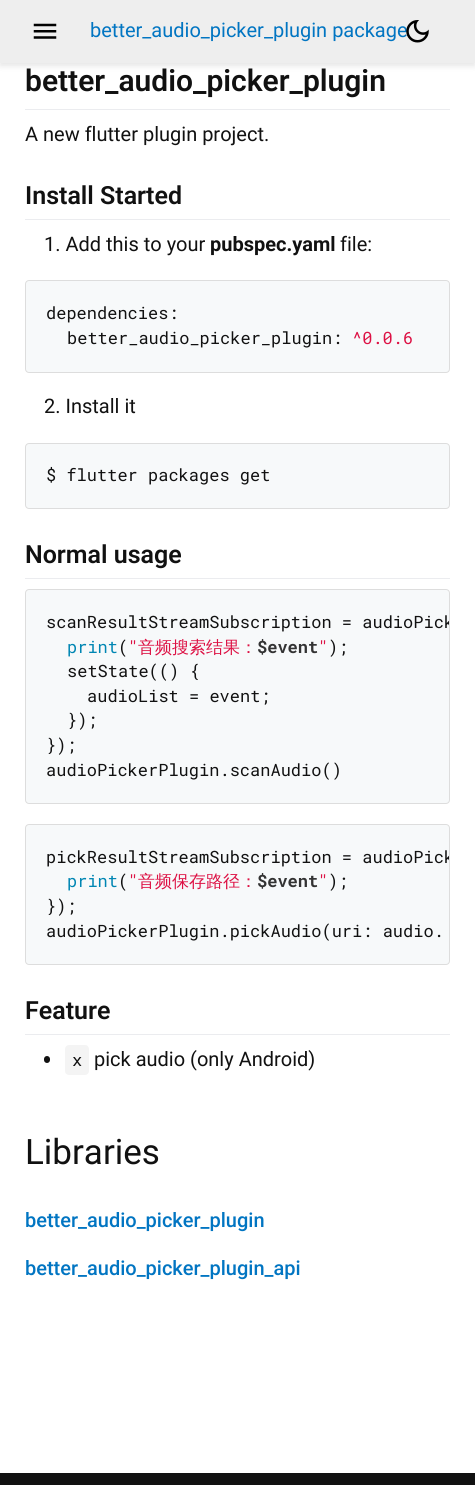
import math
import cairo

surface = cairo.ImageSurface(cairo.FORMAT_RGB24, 475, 1485)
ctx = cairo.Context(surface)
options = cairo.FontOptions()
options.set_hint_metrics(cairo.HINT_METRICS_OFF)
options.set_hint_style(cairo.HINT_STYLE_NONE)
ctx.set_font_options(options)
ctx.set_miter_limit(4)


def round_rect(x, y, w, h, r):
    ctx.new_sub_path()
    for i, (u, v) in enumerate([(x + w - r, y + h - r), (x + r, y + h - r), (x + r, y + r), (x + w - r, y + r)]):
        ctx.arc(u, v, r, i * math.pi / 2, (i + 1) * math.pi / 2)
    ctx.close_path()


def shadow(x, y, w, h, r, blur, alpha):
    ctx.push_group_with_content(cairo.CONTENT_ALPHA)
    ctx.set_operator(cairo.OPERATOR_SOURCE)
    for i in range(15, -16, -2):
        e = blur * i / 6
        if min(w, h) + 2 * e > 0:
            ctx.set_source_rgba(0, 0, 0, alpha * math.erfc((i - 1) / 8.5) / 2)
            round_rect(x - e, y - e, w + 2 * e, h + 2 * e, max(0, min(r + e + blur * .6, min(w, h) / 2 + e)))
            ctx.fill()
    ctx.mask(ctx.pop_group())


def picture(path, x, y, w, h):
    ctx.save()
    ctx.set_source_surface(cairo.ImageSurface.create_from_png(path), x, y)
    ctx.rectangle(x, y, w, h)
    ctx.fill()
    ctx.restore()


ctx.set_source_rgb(1, 1, 1)
ctx.paint()
ctx.set_source_rgb(0, 0, 0)
shadow(0, 4, 475, 62, 0, 3, 0.1)
ctx.set_source_rgb(0.933, 0.933, 0.933)
ctx.rectangle(0, 0, 475, 63)
ctx.fill()
picture("img1.png", 33, 23, 24, 16)
ctx.select_font_face("Roboto")
ctx.set_font_size(20)
ctx.set_source_rgb(0.004, 0.459, 0.761)
ctx.move_to(90, 37)
ctx.show_text("better_audio_picker_plugin package")
picture("img2.png", 406, 20, 23, 23)
ctx.set_source_rgb(0.918, 0.925, 0.937)
ctx.rectangle(25, 109, 425, 1)
ctx.fill()
ctx.select_font_face("Roboto SemiBold")
ctx.set_font_size(30)
ctx.set_source_rgb(0.067, 0.067, 0.067)
ctx.move_to(25, 91)
ctx.show_text("better_audio_picker_plugin")
ctx.select_font_face("Roboto")
ctx.set_font_size(20)
ctx.move_to(25, 141)
ctx.show_text("A new flutter plugin project.")
ctx.set_source_rgb(0.918, 0.925, 0.937)
ctx.rectangle(25, 219, 425, 1)
ctx.fill()
ctx.select_font_face("Roboto SemiBold")
ctx.set_font_size(25)
ctx.set_source_rgb(0.067, 0.067, 0.067)
ctx.move_to(25, 204)
ctx.show_text("Install Started")
ctx.select_font_face("Roboto")
ctx.set_font_size(20)
ctx.move_to(44, 251)
ctx.show_text("1. Add this to your")
ctx.select_font_face("Roboto", cairo.FONT_SLANT_NORMAL, cairo.FONT_WEIGHT_BOLD)
ctx.move_to(210, 251)
ctx.show_text("pubspec.yaml")
ctx.select_font_face("Roboto")
ctx.move_to(340, 251)
ctx.show_text("file:")
ctx.set_source_rgb(0.965, 0.973, 0.98)
round_rect(25.5, 280.5, 424, 92, 3.5)
ctx.fill_preserve()
ctx.set_source_rgb(0.867, 0.867, 0.867)
ctx.set_line_width(1)
ctx.stroke()
ctx.select_font_face("Roboto Mono")
ctx.set_font_size(17)
ctx.set_source_rgb(0.067, 0.067, 0.067)
ctx.move_to(46, 319)
ctx.show_text("dependencies:")
ctx.move_to(67, 344)
ctx.show_text("better_audio_picker_plugin:")
ctx.set_source_rgb(0.867, 0.067, 0.267)
ctx.move_to(352, 344)
ctx.show_text("^0.0.6")
ctx.select_font_face("Roboto")
ctx.set_font_size(20)
ctx.set_source_rgb(0.067, 0.067, 0.067)
ctx.move_to(44, 413)
ctx.show_text("2. Install it")
ctx.set_source_rgb(0.965, 0.973, 0.98)
round_rect(25.5, 443.5, 424, 65, 3.5)
ctx.fill_preserve()
ctx.set_source_rgb(0.867, 0.867, 0.867)
ctx.stroke()
ctx.select_font_face("Roboto Mono")
ctx.set_font_size(17)
ctx.set_source_rgb(0.067, 0.067, 0.067)
ctx.move_to(46, 481)
ctx.show_text("$ flutter packages get")
ctx.set_source_rgb(0.918, 0.925, 0.937)
ctx.rectangle(25, 578, 425, 1)
ctx.fill()
ctx.select_font_face("Roboto SemiBold")
ctx.set_font_size(25)
ctx.set_source_rgb(0.067, 0.067, 0.067)
ctx.move_to(25, 563)
ctx.show_text("Normal usage")
ctx.set_source_rgb(0.965, 0.973, 0.98)
round_rect(25.5, 589.5, 424, 214, 3.5)
ctx.fill_preserve()
ctx.set_source_rgb(0.867, 0.867, 0.867)
ctx.stroke()
ctx.save()
round_rect(26, 590, 423, 213, 2.5)
ctx.clip()
ctx.select_font_face("Roboto Mono")
ctx.set_font_size(17)
ctx.set_source_rgb(0.067, 0.067, 0.067)
ctx.move_to(46, 628)
ctx.show_text("scanResultStreamSubscription = audioPick")
ctx.restore()
ctx.select_font_face("Roboto Mono")
ctx.set_font_size(17)
ctx.set_source_rgb(0, 0.525, 0.702)
ctx.move_to(67, 653)
ctx.show_text("print")
ctx.set_source_rgb(0.067, 0.067, 0.067)
ctx.move_to(118, 653)
ctx.show_text("(")
ctx.set_source_rgb(0.867, 0.067, 0.267)
ctx.move_to(128, 653)
ctx.show_text("\"")
ctx.select_font_face("WenQuanYi Zen Hei Medium")
ctx.move_to(138, 653)
ctx.show_text("音频搜索结果：")
ctx.select_font_face("Roboto Mono", cairo.FONT_SLANT_NORMAL, cairo.FONT_WEIGHT_BOLD)
ctx.set_source_rgb(0.2, 0.2, 0.2)
ctx.move_to(257, 653)
ctx.show_text("$event")
ctx.select_font_face("Roboto Mono")
ctx.set_source_rgb(0.867, 0.067, 0.267)
ctx.move_to(318, 653)
ctx.show_text("\"")
ctx.set_source_rgb(0.067, 0.067, 0.067)
ctx.move_to(328, 653)
ctx.show_text(");")
ctx.move_to(67, 677)
ctx.show_text("setState(() {")
ctx.move_to(87, 702)
ctx.show_text("audioList = event;")
ctx.move_to(67, 726)
ctx.show_text("});")
ctx.move_to(46, 751)
ctx.show_text("});")
ctx.move_to(46, 776)
ctx.show_text("audioPickerPlugin.scanAudio()")
ctx.set_source_rgb(0.965, 0.973, 0.98)
round_rect(25.5, 824.5, 424, 140, 3.5)
ctx.fill_preserve()
ctx.set_source_rgb(0.867, 0.867, 0.867)
ctx.stroke()
ctx.save()
round_rect(26, 825, 423, 139, 2.5)
ctx.clip()
ctx.set_source_rgb(0.067, 0.067, 0.067)
ctx.move_to(46, 863)
ctx.show_text("pickResultStreamSubscription = audioPick")
ctx.restore()
ctx.set_source_rgb(0, 0.525, 0.702)
ctx.move_to(67, 887)
ctx.show_text("print")
ctx.set_source_rgb(0.067, 0.067, 0.067)
ctx.move_to(118, 887)
ctx.show_text("(")
ctx.set_source_rgb(0.867, 0.067, 0.267)
ctx.move_to(128, 887)
ctx.show_text("\"")
ctx.select_font_face("WenQuanYi Zen Hei Medium")
ctx.move_to(138, 887)
ctx.show_text("音频保存路径：")
ctx.select_font_face("Roboto Mono", cairo.FONT_SLANT_NORMAL, cairo.FONT_WEIGHT_BOLD)
ctx.set_source_rgb(0.2, 0.2, 0.2)
ctx.move_to(257, 887)
ctx.show_text("$event")
ctx.select_font_face("Roboto Mono")
ctx.set_source_rgb(0.867, 0.067, 0.267)
ctx.move_to(318, 887)
ctx.show_text("\"")
ctx.set_source_rgb(0.067, 0.067, 0.067)
ctx.move_to(328, 887)
ctx.show_text(");")
ctx.move_to(46, 912)
ctx.show_text("});")
ctx.move_to(46, 937)
ctx.show_text("audioPickerPlugin.pickAudio(uri: audio.")
ctx.set_source_rgb(0.918, 0.925, 0.937)
ctx.rectangle(25, 1034, 425, 1)
ctx.fill()
ctx.select_font_face("Roboto SemiBold")
ctx.set_font_size(25)
ctx.set_source_rgb(0.067, 0.067, 0.067)
ctx.move_to(25, 1019)
ctx.show_text("Feature")
round_rect(44, 1056, 6, 7, 3)
ctx.fill()
ctx.set_source_rgb(0.957, 0.957, 0.957)
round_rect(65, 1045, 24, 30, 4)
ctx.fill()
ctx.select_font_face("Roboto Mono")
ctx.set_font_size(17)
ctx.set_source_rgb(0.067, 0.067, 0.067)
ctx.move_to(72, 1066)
ctx.show_text("x")
ctx.select_font_face("Roboto")
ctx.set_font_size(20)
ctx.move_to(94, 1066)
ctx.show_text("pick audio (only Android)")
ctx.set_font_size(35)
ctx.move_to(25, 1164)
ctx.show_text("Libraries")
ctx.select_font_face("Roboto Medium")
ctx.set_font_size(20)
ctx.set_source_rgb(0.004, 0.459, 0.761)
ctx.move_to(25, 1227)
ctx.show_text("better_audio_picker_plugin")
ctx.move_to(25, 1275)
ctx.show_text("better_audio_picker_plugin_api")
ctx.set_source_rgb(0.067, 0.067, 0.067)
ctx.rectangle(0, 1473, 475, 12)
ctx.fill()
surface.write_to_png("page.png")
